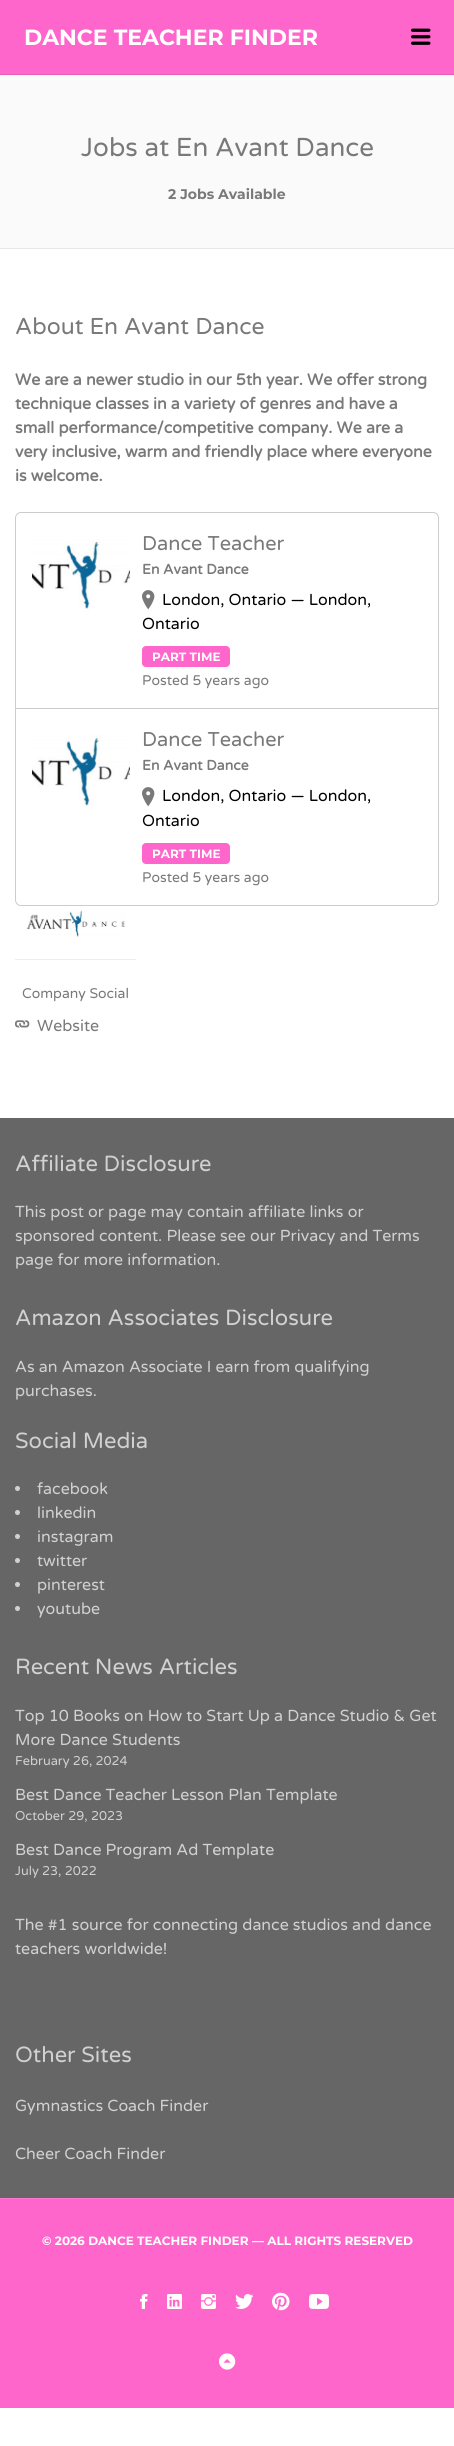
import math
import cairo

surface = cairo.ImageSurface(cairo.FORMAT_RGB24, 454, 2446)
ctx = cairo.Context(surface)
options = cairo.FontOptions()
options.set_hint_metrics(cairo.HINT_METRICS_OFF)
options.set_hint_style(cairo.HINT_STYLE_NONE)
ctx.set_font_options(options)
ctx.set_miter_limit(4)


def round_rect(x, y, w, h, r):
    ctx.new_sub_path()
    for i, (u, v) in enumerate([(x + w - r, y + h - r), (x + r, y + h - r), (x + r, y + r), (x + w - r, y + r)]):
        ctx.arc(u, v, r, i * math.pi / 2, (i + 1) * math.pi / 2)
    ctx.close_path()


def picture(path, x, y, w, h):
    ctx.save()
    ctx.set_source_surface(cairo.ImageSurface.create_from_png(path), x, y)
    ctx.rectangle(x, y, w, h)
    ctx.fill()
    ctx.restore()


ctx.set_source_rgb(1, 1, 1)
ctx.paint()
ctx.set_source_rgb(1, 0.4, 0.8)
ctx.rectangle(0, 0, 454, 74)
ctx.fill()
ctx.set_source_rgb(0.902, 0.361, 0.722)
ctx.rectangle(0, 74, 454, 1)
ctx.fill()
ctx.select_font_face("Montserrat", cairo.FONT_SLANT_NORMAL, cairo.FONT_WEIGHT_BOLD)
ctx.set_font_size(22)
ctx.set_source_rgb(1, 1, 1)
ctx.move_to(24, 45)
ctx.show_text("DANCE TEACHER FINDER")
picture("img1.png", 411, 28, 20, 17)
ctx.set_source_rgb(0.98, 0.98, 0.98)
ctx.rectangle(0, 75, 454, 173)
ctx.fill()
ctx.set_source_rgb(0.906, 0.906, 0.906)
ctx.rectangle(0, 248, 454, 1)
ctx.fill()
ctx.select_font_face("Varela Round")
ctx.set_font_size(26)
ctx.set_source_rgb(0.475, 0.475, 0.475)
ctx.move_to(81, 156)
ctx.show_text("Jobs at En Avant Dance")
ctx.select_font_face("Montserrat", cairo.FONT_SLANT_NORMAL, cairo.FONT_WEIGHT_BOLD)
ctx.set_font_size(14)
ctx.move_to(168, 199)
ctx.show_text("2 Jobs Available")
ctx.select_font_face("Varela Round")
ctx.set_font_size(23)
ctx.move_to(15, 334)
ctx.show_text("About En Avant Dance")
ctx.select_font_face("Varela Round", cairo.FONT_SLANT_NORMAL, cairo.FONT_WEIGHT_BOLD)
ctx.set_font_size(16)
ctx.move_to(15, 385)
ctx.show_text("We are a newer studio in our 5th year. We offer strong")
ctx.move_to(15, 409)
ctx.show_text("technique classes in a variety of genres and have a")
ctx.move_to(15, 433)
ctx.show_text("small performance/competitive company. We are a")
ctx.move_to(15, 457)
ctx.show_text("very inclusive, warm and friendly place where everyone")
ctx.move_to(15, 481)
ctx.show_text("is welcome.")
round_rect(15.5, 512.5, 423, 393, 5.5)
ctx.set_source_rgb(0.8, 0.8, 0.8)
ctx.set_line_width(1)
ctx.stroke()
ctx.rectangle(16, 708, 422, 1)
ctx.fill()
picture("img2.png", 32, 539, 98, 73)
ctx.select_font_face("Varela Round")
ctx.set_font_size(20)
ctx.set_source_rgb(0.475, 0.475, 0.475)
ctx.move_to(142, 550)
ctx.show_text("Dance Teacher")
ctx.select_font_face("Varela Round", cairo.FONT_SLANT_NORMAL, cairo.FONT_WEIGHT_BOLD)
ctx.set_font_size(14)
ctx.move_to(142, 574)
ctx.show_text("En Avant Dance")
picture("img3.png", 142, 590, 13, 20)
ctx.select_font_face("Varela Round")
ctx.set_font_size(16)
ctx.set_source_rgb(0, 0, 0)
ctx.move_to(162, 605)
ctx.show_text("London, Ontario — London,")
ctx.move_to(142, 629)
ctx.show_text("Ontario")
ctx.set_source_rgb(1, 0.4, 0.8)
round_rect(142, 646, 88, 21, 4)
ctx.fill()
ctx.select_font_face("Montserrat", cairo.FONT_SLANT_NORMAL, cairo.FONT_WEIGHT_BOLD)
ctx.set_font_size(12)
ctx.set_source_rgb(1, 1, 1)
ctx.move_to(152, 661)
ctx.show_text("PART TIME")
ctx.select_font_face("Varela Round")
ctx.set_font_size(14)
ctx.set_source_rgb(0.475, 0.475, 0.475)
ctx.move_to(142, 685)
ctx.show_text("Posted 5 years ago")
picture("img4.png", 32, 735, 98, 72)
ctx.set_font_size(20)
ctx.move_to(142, 746)
ctx.show_text("Dance Teacher")
ctx.select_font_face("Varela Round", cairo.FONT_SLANT_NORMAL, cairo.FONT_WEIGHT_BOLD)
ctx.set_font_size(14)
ctx.move_to(142, 770)
ctx.show_text("En Avant Dance")
picture("img3.png", 142, 787, 13, 20)
ctx.select_font_face("Varela Round")
ctx.set_font_size(16)
ctx.set_source_rgb(0, 0, 0)
ctx.move_to(162, 801)
ctx.show_text("London, Ontario — London,")
ctx.move_to(142, 826)
ctx.show_text("Ontario")
ctx.set_source_rgb(1, 0.4, 0.8)
round_rect(142, 843, 88, 21, 4)
ctx.fill()
ctx.select_font_face("Montserrat", cairo.FONT_SLANT_NORMAL, cairo.FONT_WEIGHT_BOLD)
ctx.set_font_size(12)
ctx.set_source_rgb(1, 1, 1)
ctx.move_to(152, 858)
ctx.show_text("PART TIME")
ctx.select_font_face("Varela Round")
ctx.set_font_size(14)
ctx.set_source_rgb(0.475, 0.475, 0.475)
ctx.move_to(142, 882)
ctx.show_text("Posted 5 years ago")
ctx.set_source_rgb(0.933, 0.933, 0.933)
ctx.rectangle(15, 959, 121, 1)
ctx.fill()
picture("img5.png", 26, 910, 100, 27)
ctx.set_source_rgb(0.475, 0.475, 0.475)
ctx.move_to(22, 998)
ctx.show_text("Company Social")
picture("img6.png", 15, 1020, 15, 8)
ctx.set_font_size(16)
ctx.move_to(37, 1031)
ctx.show_text("Website")
ctx.set_source_rgb(1, 0.4, 0.8)
ctx.rectangle(0, 2199, 454, 209)
ctx.fill()
ctx.set_source_rgb(0.4, 0.4, 0.4)
ctx.rectangle(0, 1118, 454, 1080)
ctx.fill()
ctx.set_font_size(22)
ctx.set_source_rgb(0.82, 0.82, 0.82)
ctx.move_to(15, 1171)
ctx.show_text("Affiliate Disclosure")
ctx.set_font_size(16)
ctx.move_to(15, 1217)
ctx.show_text("This post or page may contain affiliate links or")
ctx.move_to(15, 1241)
ctx.show_text("sponsored content. Please see our Privacy and Terms")
ctx.move_to(15, 1265)
ctx.show_text("page for more information.")
ctx.set_font_size(22)
ctx.move_to(15, 1325)
ctx.show_text("Amazon Associates Disclosure")
ctx.set_font_size(16)
ctx.move_to(15, 1372)
ctx.show_text("As an Amazon Associate I earn from qualifying")
ctx.move_to(15, 1396)
ctx.show_text("purchases.")
ctx.set_font_size(22)
ctx.move_to(15, 1448)
ctx.show_text("Social Media")
ctx.new_path()
ctx.arc(17.5, 1488.5, 2.5, 0, 2 * math.pi)
ctx.fill()
ctx.set_font_size(16)
ctx.move_to(37, 1494)
ctx.show_text("facebook")
ctx.new_path()
ctx.arc(17.5, 1512.5, 2.5, 0, 2 * math.pi)
ctx.fill()
ctx.move_to(37, 1518)
ctx.show_text("linkedin")
ctx.new_path()
ctx.arc(17.5, 1536.5, 2.5, 0, 2 * math.pi)
ctx.fill()
ctx.move_to(37, 1542)
ctx.show_text("instagram")
ctx.new_path()
ctx.arc(17.5, 1560.5, 2.5, 0, 2 * math.pi)
ctx.fill()
ctx.move_to(37, 1566)
ctx.show_text("twitter")
ctx.new_path()
ctx.arc(17.5, 1584.5, 2.5, 0, 2 * math.pi)
ctx.fill()
ctx.move_to(37, 1590)
ctx.show_text("pinterest")
ctx.new_path()
ctx.arc(17.5, 1608.5, 2.5, 0, 2 * math.pi)
ctx.fill()
ctx.move_to(37, 1614)
ctx.show_text("youtube")
ctx.set_font_size(22)
ctx.move_to(15, 1674)
ctx.show_text("Recent News Articles")
ctx.set_font_size(16)
ctx.move_to(15, 1721)
ctx.show_text("Top 10 Books on How to Start Up a Dance Studio & Get")
ctx.move_to(15, 1745)
ctx.show_text("More Dance Students")
ctx.set_font_size(12.75)
ctx.move_to(15, 1765)
ctx.show_text("February 26, 2024")
ctx.set_font_size(16)
ctx.move_to(15, 1800)
ctx.show_text("Best Dance Teacher Lesson Plan Template")
ctx.set_font_size(12.75)
ctx.move_to(15, 1820)
ctx.show_text("October 29, 2023")
ctx.set_font_size(16)
ctx.move_to(15, 1855)
ctx.show_text("Best Dance Program Ad Template")
ctx.set_font_size(12.75)
ctx.move_to(15, 1875)
ctx.show_text("July 23, 2022")
ctx.set_font_size(16)
ctx.move_to(15, 1930)
ctx.show_text("The #1 source for connecting dance studios and dance")
ctx.move_to(15, 1954)
ctx.show_text("teachers worldwide!")
ctx.set_font_size(22)
ctx.move_to(15, 2062)
ctx.show_text("Other Sites")
ctx.set_font_size(16)
ctx.move_to(15, 2111)
ctx.show_text("Gymnastics Coach Finder")
ctx.move_to(15, 2159)
ctx.show_text("Cheer Coach Finder")
ctx.set_source_rgb(1, 0.459, 0.82)
ctx.rectangle(0, 2198, 454, 1)
ctx.fill()
ctx.select_font_face("Montserrat", cairo.FONT_SLANT_NORMAL, cairo.FONT_WEIGHT_BOLD)
ctx.set_font_size(12)
ctx.set_source_rgb(1, 1, 1)
ctx.move_to(42, 2245)
ctx.show_text("© 2026 DANCE TEACHER FINDER — ALL RIGHTS RESERVED")
picture("img7.png", 140, 2294, 8, 15)
picture("img8.png", 167, 2294, 15, 15)
picture("img9.png", 201, 2294, 15, 15)
picture("img10.png", 235, 2294, 19, 15)
picture("img11.png", 272, 2292, 18, 19)
picture("img12.png", 309, 2294, 20, 15)
picture("img13.png", 219, 2353, 17, 17)
surface.write_to_png("page.png")
